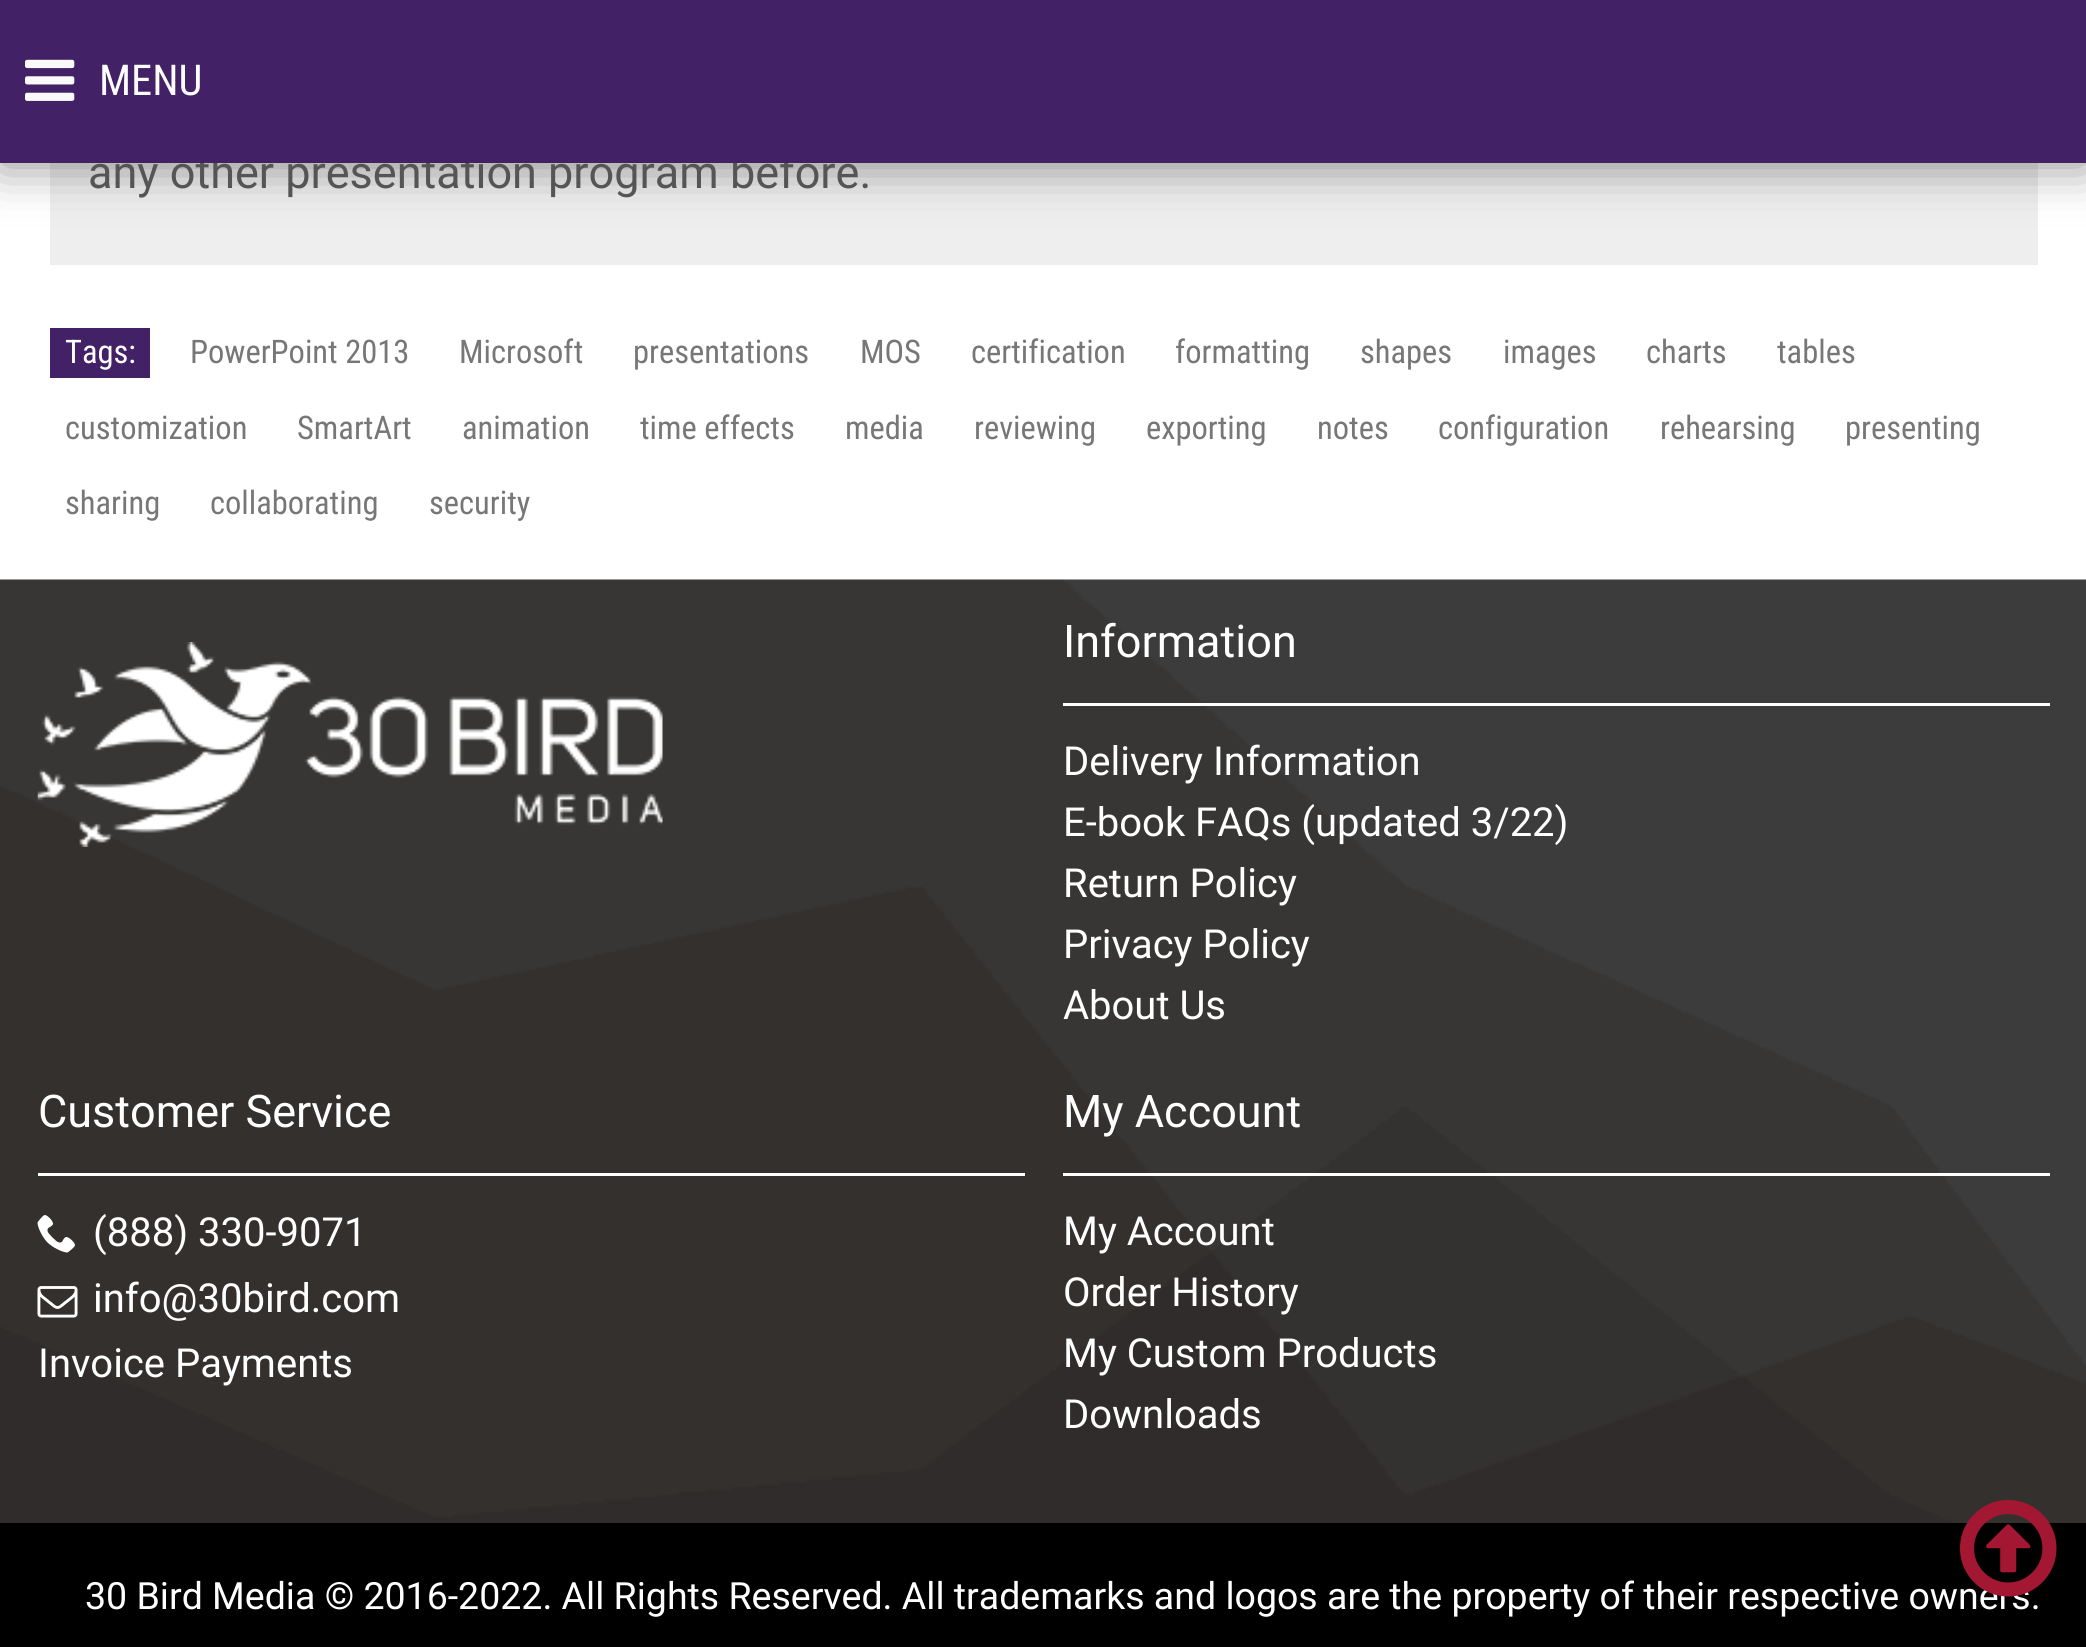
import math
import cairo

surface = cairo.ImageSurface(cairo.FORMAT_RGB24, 2086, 1647)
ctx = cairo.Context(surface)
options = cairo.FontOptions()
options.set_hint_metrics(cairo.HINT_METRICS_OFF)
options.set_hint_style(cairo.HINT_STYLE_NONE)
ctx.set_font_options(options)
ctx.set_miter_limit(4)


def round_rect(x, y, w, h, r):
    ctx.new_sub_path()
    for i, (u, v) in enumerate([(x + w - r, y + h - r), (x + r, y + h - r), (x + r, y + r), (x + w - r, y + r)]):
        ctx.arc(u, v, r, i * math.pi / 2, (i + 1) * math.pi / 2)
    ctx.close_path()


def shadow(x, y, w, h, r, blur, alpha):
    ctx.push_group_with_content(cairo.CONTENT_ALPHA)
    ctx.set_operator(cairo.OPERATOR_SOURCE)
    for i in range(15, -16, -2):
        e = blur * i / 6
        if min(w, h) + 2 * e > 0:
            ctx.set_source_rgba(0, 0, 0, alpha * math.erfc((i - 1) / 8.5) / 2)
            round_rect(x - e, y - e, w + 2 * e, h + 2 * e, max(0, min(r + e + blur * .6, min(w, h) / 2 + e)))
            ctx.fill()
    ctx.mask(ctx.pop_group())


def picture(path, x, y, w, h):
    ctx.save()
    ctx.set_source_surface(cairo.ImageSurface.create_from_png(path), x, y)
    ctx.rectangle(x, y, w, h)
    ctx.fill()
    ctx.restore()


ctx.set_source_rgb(1, 1, 1)
ctx.paint()
ctx.set_source_rgb(0.933, 0.933, 0.933)
ctx.rectangle(50, 163, 1988, 102)
ctx.fill()
ctx.set_source_rgb(0, 0, 0)
shadow(0, 3, 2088, 162, 0, 25, 0.45)
ctx.select_font_face("Roboto")
ctx.set_font_size(45)
ctx.set_source_rgb(0.333, 0.333, 0.333)
ctx.move_to(88, 188)
ctx.show_text("any other presentation program before.")
ctx.set_source_rgb(0.259, 0.129, 0.4)
ctx.rectangle(0, 0, 2086, 163)
ctx.fill()
picture("img1.png", 25, 59, 50, 42)
ctx.select_font_face("Roboto Condensed")
ctx.set_font_size(42.5)
ctx.set_source_rgb(1, 1, 1)
ctx.move_to(99, 95)
ctx.show_text("MENU")
ctx.set_source_rgb(0.259, 0.129, 0.4)
ctx.rectangle(50, 328, 100, 50)
ctx.fill()
ctx.set_font_size(32.5)
ctx.set_source_rgb(1, 1, 1)
ctx.move_to(65, 363)
ctx.show_text("Tags:")
ctx.set_source_rgb(0.467, 0.467, 0.467)
ctx.move_to(190, 363)
ctx.show_text("PowerPoint 2013")
ctx.move_to(459, 363)
ctx.show_text("Microsoft")
ctx.move_to(633, 363)
ctx.show_text("presentations")
ctx.move_to(860, 363)
ctx.show_text("MOS")
ctx.move_to(971, 363)
ctx.show_text("certification")
ctx.move_to(1175, 363)
ctx.show_text("formatting")
ctx.move_to(1360, 363)
ctx.show_text("shapes")
ctx.move_to(1503, 363)
ctx.show_text("images")
ctx.move_to(1646, 363)
ctx.show_text("charts")
ctx.move_to(1777, 363)
ctx.show_text("tables")
ctx.move_to(65, 439)
ctx.show_text("customization")
ctx.move_to(297, 439)
ctx.show_text("SmartArt")
ctx.move_to(462, 439)
ctx.show_text("animation")
ctx.move_to(640, 439)
ctx.show_text("time effects")
ctx.move_to(845, 439)
ctx.show_text("media")
ctx.move_to(974, 439)
ctx.show_text("reviewing")
ctx.move_to(1146, 439)
ctx.show_text("exporting")
ctx.move_to(1317, 439)
ctx.show_text("notes")
ctx.move_to(1438, 439)
ctx.show_text("configuration")
ctx.move_to(1660, 439)
ctx.show_text("rehearsing")
ctx.move_to(1845, 439)
ctx.show_text("presenting")
ctx.move_to(65, 514)
ctx.show_text("sharing")
ctx.move_to(210, 514)
ctx.show_text("collaborating")
ctx.move_to(429, 514)
ctx.show_text("security")
picture("img2.png", 0, 579, 2086, 944)
picture("img3.png", 37, 642, 626, 205)
ctx.set_source_rgb(1, 1, 1)
ctx.rectangle(1063, 703, 987, 3)
ctx.fill()
ctx.select_font_face("Roboto")
ctx.set_font_size(45)
ctx.move_to(1063, 657)
ctx.show_text("Information")
ctx.set_font_size(40)
ctx.move_to(1063, 775)
ctx.show_text("Delivery Information")
ctx.move_to(1063, 836)
ctx.show_text("E-book FAQs (updated 3/22)")
ctx.move_to(1063, 897)
ctx.show_text("Return Policy")
ctx.move_to(1063, 958)
ctx.show_text("Privacy Policy")
ctx.move_to(1063, 1019)
ctx.show_text("About Us")
ctx.rectangle(38, 1173, 987, 3)
ctx.fill()
ctx.set_font_size(45)
ctx.move_to(38, 1127)
ctx.show_text("Customer Service")
picture("img4.png", 37, 1215, 38, 38)
ctx.set_font_size(40)
ctx.move_to(93, 1246)
ctx.show_text("(888) 330-9071")
picture("img5.png", 37, 1286, 41, 32)
ctx.move_to(93, 1312)
ctx.show_text("info@30bird.com")
ctx.move_to(38, 1377)
ctx.show_text("Invoice Payments")
ctx.rectangle(1063, 1173, 987, 3)
ctx.fill()
ctx.set_font_size(45)
ctx.move_to(1063, 1127)
ctx.show_text("My Account")
ctx.set_font_size(40)
ctx.move_to(1063, 1245)
ctx.show_text("My Account")
ctx.move_to(1063, 1306)
ctx.show_text("Order History")
ctx.move_to(1063, 1367)
ctx.show_text("My Custom Products")
ctx.move_to(1063, 1428)
ctx.show_text("Downloads")
ctx.set_source_rgb(0, 0, 0)
ctx.rectangle(0, 1523, 2086, 124)
ctx.fill()
ctx.set_font_size(37.5)
ctx.set_source_rgb(1, 1, 1)
ctx.move_to(85, 1609)
ctx.show_text("30 Bird Media © 2016-2022. All Rights Reserved. All trademarks and logos are the property of their respective owners.")
picture("img6.png", 1960, 1500, 97, 97)
surface.write_to_png("page.png")
